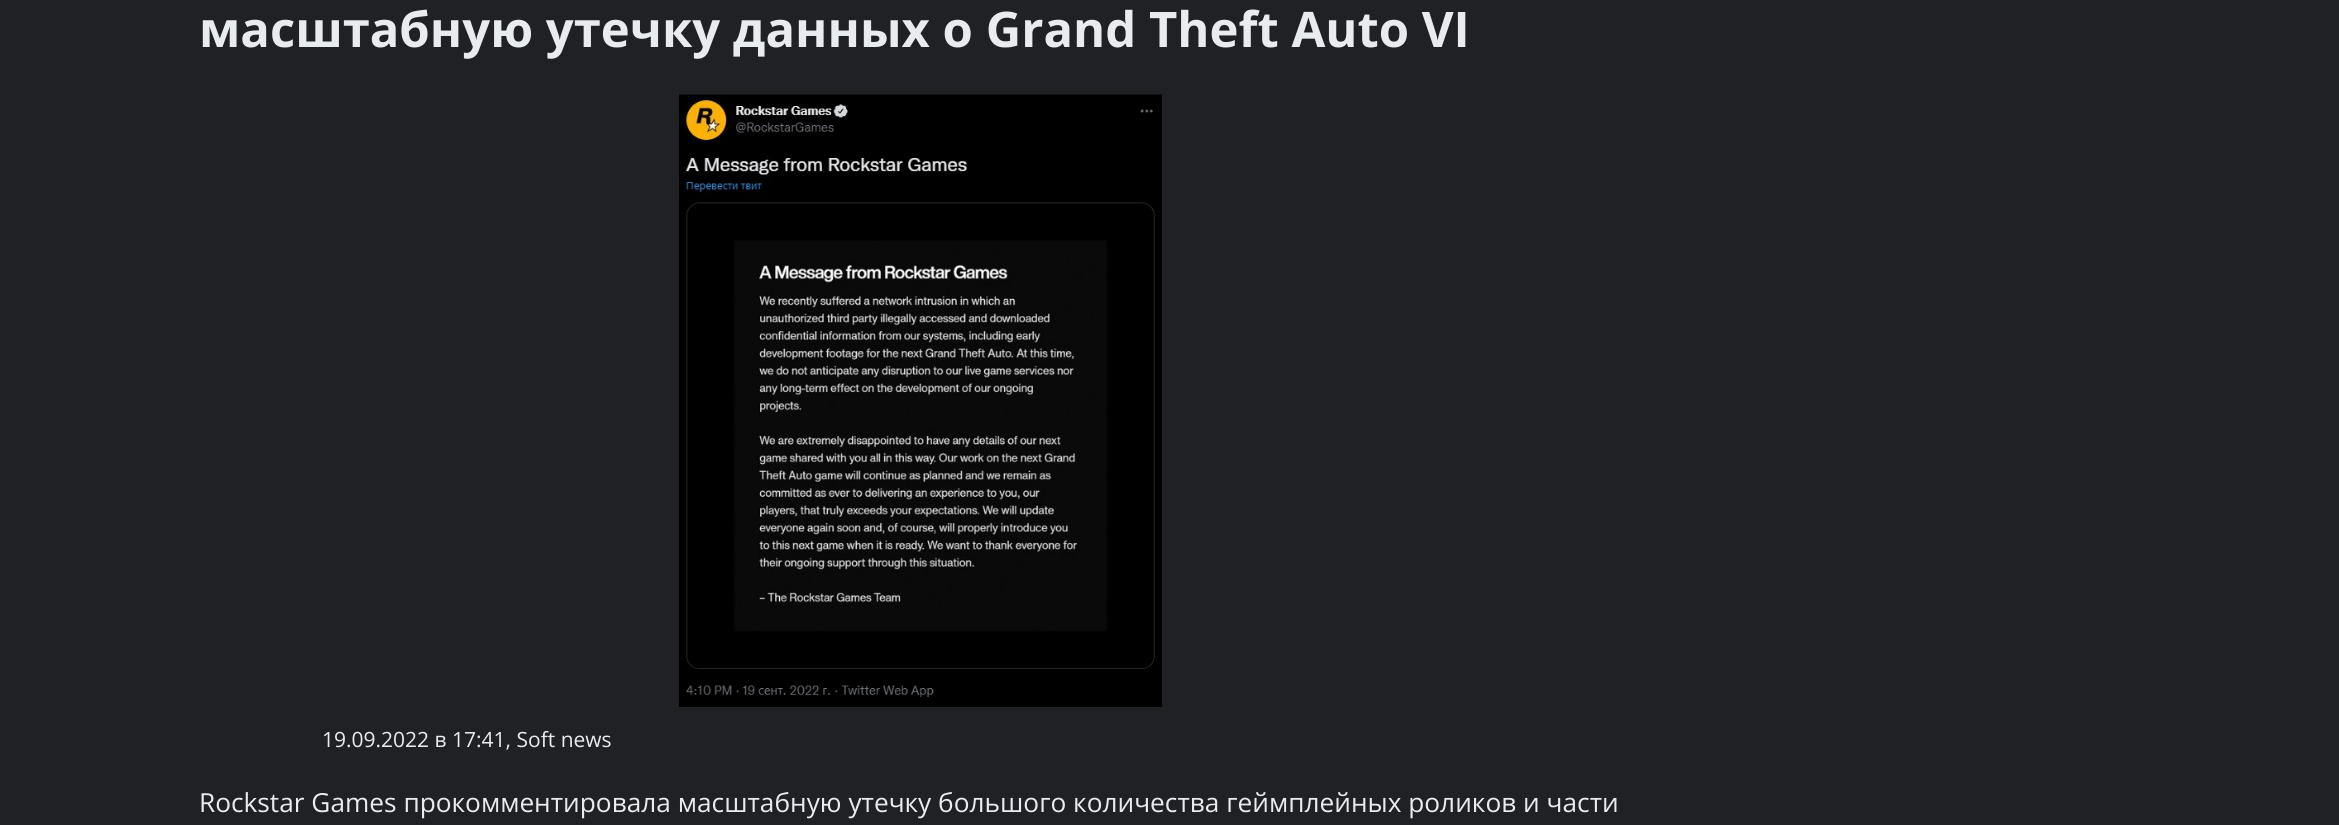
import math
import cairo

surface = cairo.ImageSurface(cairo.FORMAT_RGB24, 2339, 825)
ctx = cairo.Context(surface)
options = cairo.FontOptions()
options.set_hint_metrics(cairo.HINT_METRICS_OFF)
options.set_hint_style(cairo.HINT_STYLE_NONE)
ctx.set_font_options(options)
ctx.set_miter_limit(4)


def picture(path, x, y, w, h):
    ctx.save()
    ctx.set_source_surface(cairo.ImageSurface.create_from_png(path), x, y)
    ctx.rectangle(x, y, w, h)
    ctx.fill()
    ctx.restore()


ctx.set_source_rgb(0.125, 0.129, 0.141)
ctx.paint()
ctx.select_font_face("Open Sans", cairo.FONT_SLANT_NORMAL, cairo.FONT_WEIGHT_BOLD)
ctx.set_font_size(49)
ctx.set_source_rgb(0.914, 0.922, 0.933)
ctx.move_to(199, 47)
ctx.show_text("масштабную утечку данных о Grand Theft Auto VI")
picture("img1.png", 679, 94, 483, 613)
ctx.select_font_face("Open Sans")
ctx.set_font_size(21)
ctx.move_to(322, 747)
ctx.show_text("19.09.2022 в 17:41, Soft news")
ctx.set_font_size(26.25)
ctx.move_to(199, 812)
ctx.show_text("Rockstar Games прокомментировала масштабную утечку большого количества геймплейных роликов и части")
surface.write_to_png("page.png")
